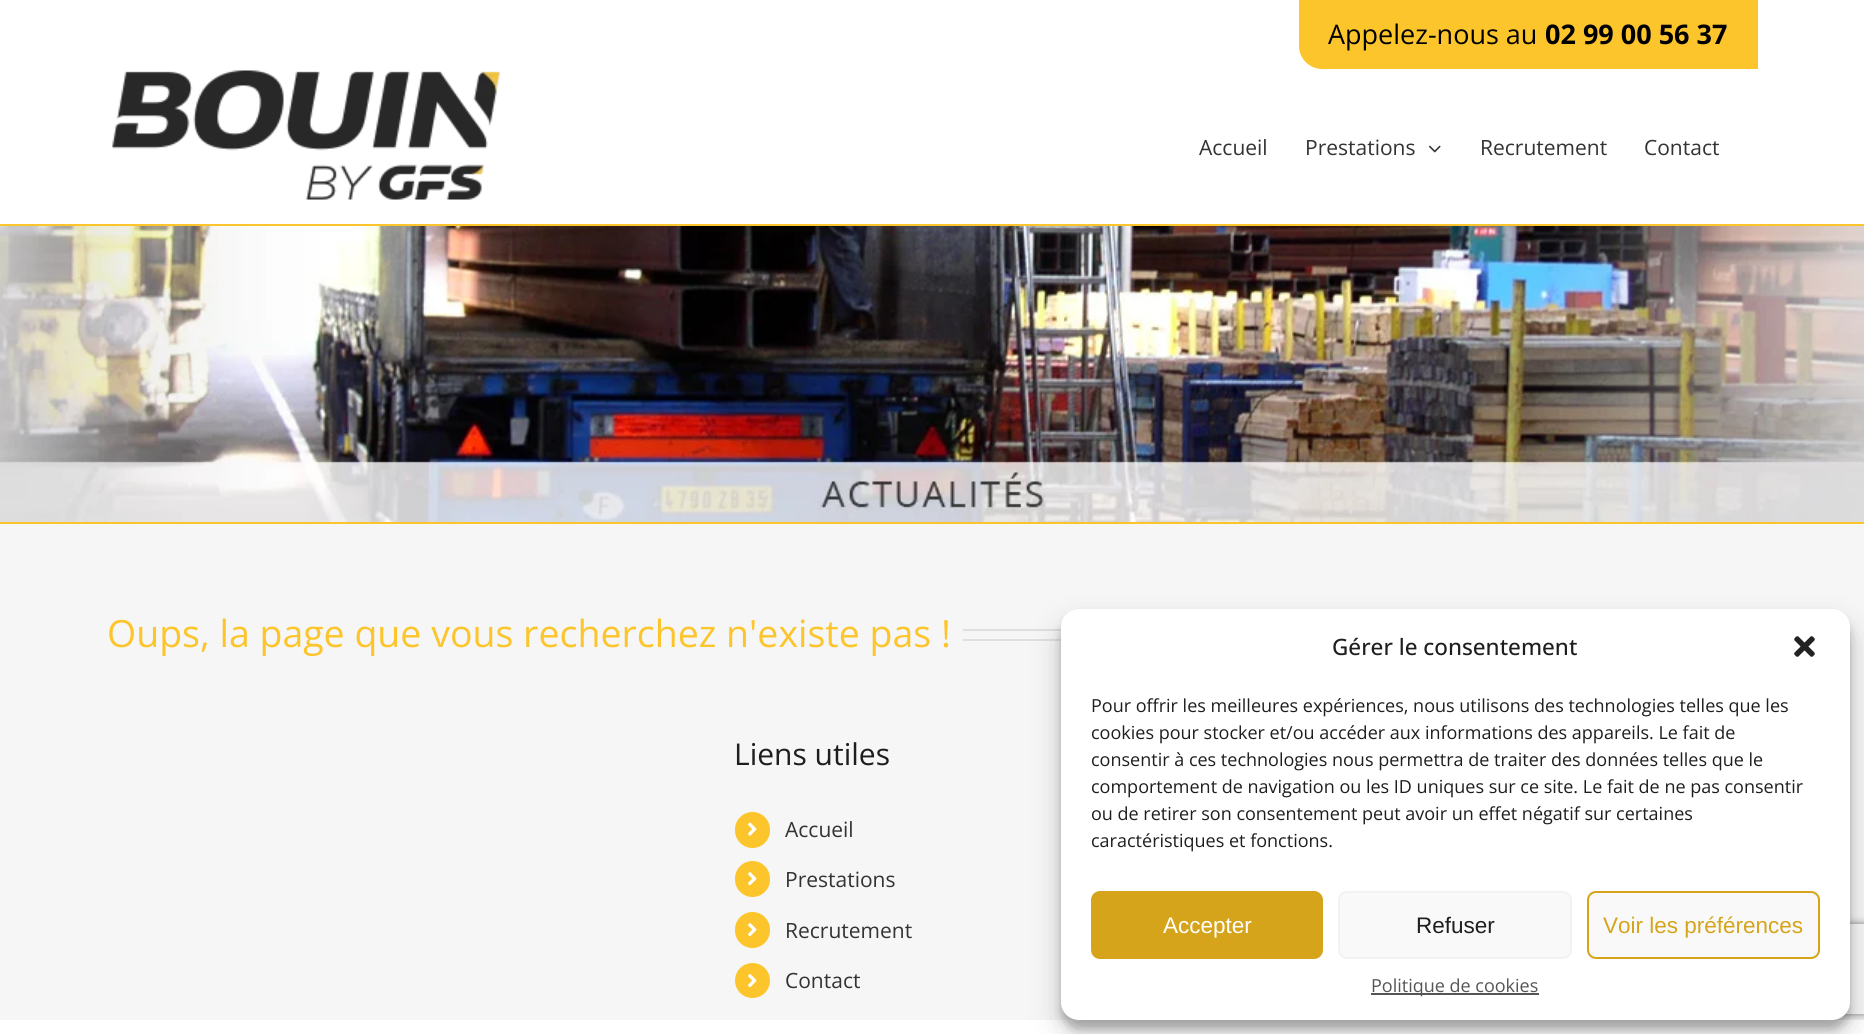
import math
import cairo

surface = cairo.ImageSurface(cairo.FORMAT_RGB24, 1864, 1034)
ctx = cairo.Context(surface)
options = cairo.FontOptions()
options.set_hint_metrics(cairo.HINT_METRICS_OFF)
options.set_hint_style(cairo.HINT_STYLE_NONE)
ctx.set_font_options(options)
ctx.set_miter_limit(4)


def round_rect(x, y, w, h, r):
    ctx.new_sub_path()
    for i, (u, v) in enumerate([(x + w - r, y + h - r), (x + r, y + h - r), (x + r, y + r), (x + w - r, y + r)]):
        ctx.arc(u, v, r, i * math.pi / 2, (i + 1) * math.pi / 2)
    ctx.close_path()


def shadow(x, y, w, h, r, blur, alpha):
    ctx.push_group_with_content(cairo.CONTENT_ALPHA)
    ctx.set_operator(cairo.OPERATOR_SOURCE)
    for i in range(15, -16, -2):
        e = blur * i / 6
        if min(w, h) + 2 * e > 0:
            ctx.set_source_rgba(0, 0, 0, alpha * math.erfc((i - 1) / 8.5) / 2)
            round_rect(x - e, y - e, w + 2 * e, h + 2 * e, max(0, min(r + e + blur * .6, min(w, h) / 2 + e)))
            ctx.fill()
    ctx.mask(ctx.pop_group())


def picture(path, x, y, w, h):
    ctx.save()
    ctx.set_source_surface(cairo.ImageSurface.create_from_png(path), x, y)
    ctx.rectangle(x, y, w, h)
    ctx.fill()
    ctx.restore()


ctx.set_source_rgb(0.961, 0.961, 0.961)
ctx.paint()
ctx.set_source_rgb(1, 1, 1)
ctx.rectangle(0, 0, 1864, 224)
ctx.fill()
ctx.set_source_rgb(0.992, 0.773, 0.173)
ctx.new_path()
ctx.move_to(1299, 0)
ctx.line_to(1758, 0)
ctx.line_to(1758, 69)
ctx.line_to(1322, 69)
ctx.curve_to(1309.5, 69, 1299, 58.5, 1299, 46)
ctx.close_path()
ctx.fill()
ctx.select_font_face("Open Sans")
ctx.set_font_size(27)
ctx.set_source_rgb(0, 0, 0)
ctx.move_to(1328, 44)
ctx.show_text("Appelez-nous au")
ctx.select_font_face("Open Sans", cairo.FONT_SLANT_NORMAL, cairo.FONT_WEIGHT_BOLD)
ctx.move_to(1545, 44)
ctx.show_text("02 99 00 56 37")
picture("img1.png", 112, 70, 388, 130)
ctx.select_font_face("Open Sans")
ctx.set_font_size(21)
ctx.set_source_rgb(0.2, 0.2, 0.2)
ctx.move_to(1199, 155)
ctx.show_text("Accueil")
ctx.move_to(1305, 155)
ctx.show_text("Prestations")
picture("img2.png", 1429, 145, 12, 8)
ctx.move_to(1480, 155)
ctx.show_text("Recrutement")
ctx.move_to(1644, 155)
ctx.show_text("Contact")
picture("img3.png", 0, 226, 1864, 296)
ctx.set_source_rgb(0.992, 0.773, 0.173)
ctx.rectangle(0, 224, 1864, 2)
ctx.fill()
ctx.rectangle(0, 522, 1864, 2)
ctx.fill()
ctx.set_font_size(37.5)
ctx.move_to(107, 647)
ctx.show_text("Oups, la page que vous recherchez n'existe pas !")
ctx.set_source_rgb(0.878, 0.871, 0.871)
ctx.rectangle(963, 629, 98, 2)
ctx.fill()
ctx.rectangle(963, 639, 98, 2)
ctx.fill()
ctx.set_font_size(30)
ctx.set_source_rgb(0.118, 0.118, 0.118)
ctx.move_to(734, 765)
ctx.show_text("Liens utiles")
ctx.set_source_rgb(0.992, 0.773, 0.173)
round_rect(735, 812, 35, 36, 17.5)
ctx.fill()
picture("img4.png", 748, 822, 9, 14)
ctx.set_font_size(21)
ctx.set_source_rgb(0.2, 0.2, 0.2)
ctx.move_to(785, 837)
ctx.show_text("Accueil")
ctx.set_source_rgb(0.992, 0.773, 0.173)
round_rect(735, 861, 35, 36, 17.5)
ctx.fill()
picture("img5.png", 748, 872, 9, 14)
ctx.set_source_rgb(0.2, 0.2, 0.2)
ctx.move_to(785, 887)
ctx.show_text("Prestations")
ctx.set_source_rgb(0.992, 0.773, 0.173)
round_rect(735, 912, 35, 36, 17.5)
ctx.fill()
picture("img5.png", 748, 923, 9, 14)
ctx.set_source_rgb(0.2, 0.2, 0.2)
ctx.move_to(785, 938)
ctx.show_text("Recrutement")
ctx.set_source_rgb(0.992, 0.773, 0.173)
ctx.new_path()
ctx.arc(752.5, 980.5, 17.5, 0, 2 * math.pi)
ctx.fill()
picture("img5.png", 748, 974, 9, 14)
ctx.set_source_rgb(0.2, 0.2, 0.2)
ctx.move_to(785, 988)
ctx.show_text("Contact")
ctx.save()
ctx.set_fill_rule(cairo.FILL_RULE_EVEN_ODD)
ctx.new_path()
ctx.move_to(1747, 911)
ctx.line_to(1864, 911)
ctx.line_to(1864, 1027)
ctx.line_to(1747, 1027)
ctx.close_path()
ctx.move_to(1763, 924)
ctx.line_to(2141, 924)
ctx.curve_to(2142.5, 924, 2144, 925.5, 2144, 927)
ctx.line_to(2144, 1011)
ctx.curve_to(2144, 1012.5, 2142.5, 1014, 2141, 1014)
ctx.line_to(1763, 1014)
ctx.curve_to(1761.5, 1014, 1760, 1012.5, 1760, 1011)
ctx.line_to(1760, 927)
ctx.curve_to(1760, 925.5, 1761.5, 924, 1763, 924)
ctx.close_path()
ctx.clip()
ctx.set_source_rgb(0.502, 0.502, 0.502)
shadow(1760, 924, 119, 90, 3, 4, 1)
ctx.restore()
ctx.set_source_rgb(1, 1, 1)
ctx.rectangle(0, 1020, 1864, 14)
ctx.fill()
ctx.set_source_rgb(0, 0, 0)
shadow(1061, 618, 789, 411, 18, 4.5, 0.23)
shadow(1061, 624, 789, 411, 18, 15, 0.19)
ctx.set_source_rgb(1, 1, 1)
round_rect(1061, 609, 789, 411, 18)
ctx.fill()
ctx.select_font_face("Open Sans Medium")
ctx.set_font_size(22.5)
ctx.set_source_rgb(0.118, 0.118, 0.118)
ctx.move_to(1332, 655)
ctx.show_text("Gérer le consentement")
picture("img6.png", 1794, 636, 21, 21)
ctx.select_font_face("Open Sans")
ctx.set_font_size(18)
ctx.move_to(1091, 712)
ctx.show_text("Pour offrir les meilleures expériences, nous utilisons des technologies telles que les")
ctx.move_to(1091, 739)
ctx.show_text("cookies pour stocker et/ou accéder aux informations des appareils. Le fait de")
ctx.move_to(1091, 766)
ctx.show_text("consentir à ces technologies nous permettra de traiter des données telles que le")
ctx.move_to(1091, 793)
ctx.show_text("comportement de navigation ou les ID uniques sur ce site. Le fait de ne pas consentir")
ctx.move_to(1091, 820)
ctx.show_text("ou de retirer son consentement peut avoir un effet négatif sur certaines")
ctx.move_to(1091, 847)
ctx.show_text("caractéristiques et fonctions.")
ctx.set_source_rgb(0.839, 0.643, 0.102)
round_rect(1092, 892, 230, 66, 8)
ctx.fill_preserve()
ctx.stroke()
ctx.select_font_face("Liberation Sans")
ctx.set_font_size(22.5)
ctx.set_source_rgb(1, 1, 1)
ctx.move_to(1163, 933)
ctx.show_text("Accepter")
ctx.set_source_rgb(0.976, 0.976, 0.976)
round_rect(1339, 892, 232, 66, 8)
ctx.fill_preserve()
ctx.set_source_rgb(0.949, 0.949, 0.949)
ctx.stroke()
ctx.set_source_rgb(0.118, 0.118, 0.118)
ctx.move_to(1416, 933)
ctx.show_text("Refuser")
ctx.set_source_rgb(0.976, 0.976, 0.976)
round_rect(1588, 892, 231, 66, 8)
ctx.fill_preserve()
ctx.set_source_rgb(0.839, 0.643, 0.102)
ctx.stroke()
ctx.move_to(1603, 933)
ctx.show_text("Voir les préférences")
ctx.set_source_rgb(0.333, 0.333, 0.333)
ctx.rectangle(1371, 993, 168, 2)
ctx.fill()
ctx.select_font_face("Open Sans")
ctx.set_font_size(18)
ctx.move_to(1371, 992)
ctx.show_text("Politique de cookies")
surface.write_to_png("page.png")
